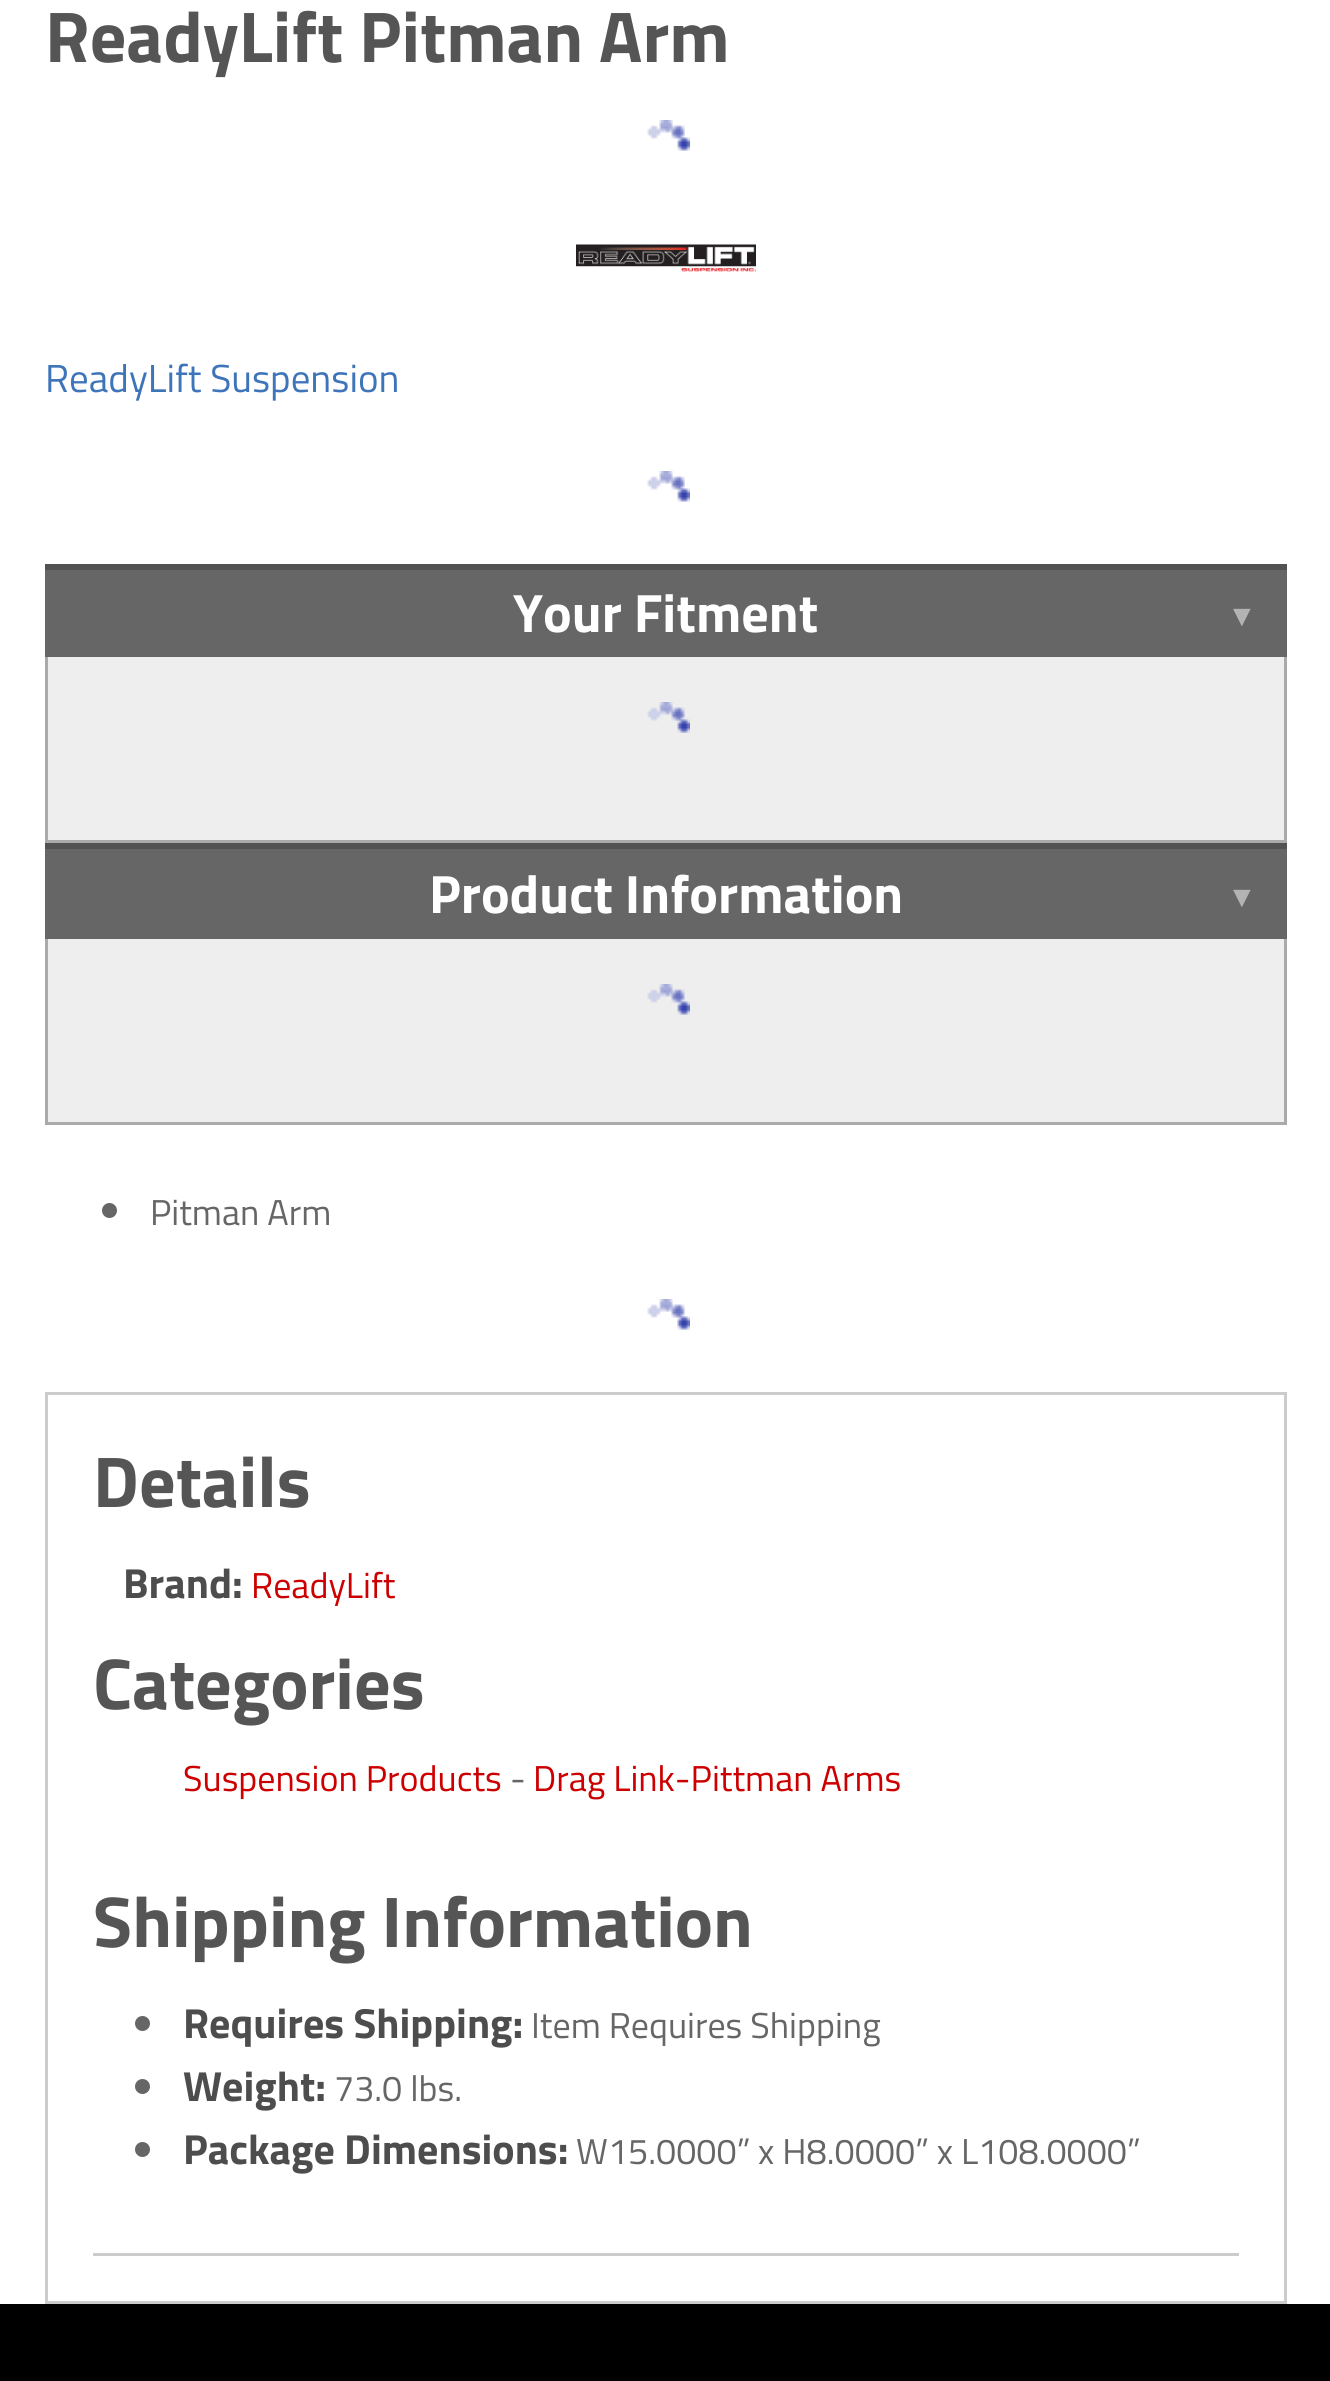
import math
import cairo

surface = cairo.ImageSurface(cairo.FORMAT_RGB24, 1330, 2381)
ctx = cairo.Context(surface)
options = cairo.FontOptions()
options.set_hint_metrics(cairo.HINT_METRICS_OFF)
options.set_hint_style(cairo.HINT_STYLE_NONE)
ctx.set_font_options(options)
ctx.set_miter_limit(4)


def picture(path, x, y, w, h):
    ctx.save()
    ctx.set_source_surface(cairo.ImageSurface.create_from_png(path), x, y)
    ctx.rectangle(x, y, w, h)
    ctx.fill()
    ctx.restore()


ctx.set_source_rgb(0, 0, 0)
ctx.paint()
ctx.set_source_rgb(1, 1, 1)
ctx.rectangle(0, 0, 1330, 2304)
ctx.fill()
ctx.select_font_face("Titillium Web", cairo.FONT_SLANT_NORMAL, cairo.FONT_WEIGHT_BOLD)
ctx.set_font_size(72)
ctx.set_source_rgb(0.333, 0.333, 0.333)
ctx.move_to(45, 62)
ctx.show_text("ReadyLift Pitman Arm")
picture("img1.png", 647, 120, 43, 31)
picture("img2.png", 576, 244, 180, 28)
ctx.select_font_face("Titillium Web")
ctx.set_font_size(39)
ctx.set_source_rgb(0.243, 0.455, 0.725)
ctx.move_to(45, 392)
ctx.show_text("ReadyLift Suspension")
picture("img1.png", 647, 471, 43, 31)
ctx.set_source_rgb(0.4, 0.4, 0.4)
ctx.rectangle(45, 570, 1242, 87)
ctx.fill()
ctx.set_source_rgb(0.322, 0.322, 0.322)
ctx.rectangle(45, 564, 1242, 6)
ctx.fill()
ctx.select_font_face("Titillium Web", cairo.FONT_SLANT_NORMAL, cairo.FONT_WEIGHT_BOLD)
ctx.set_font_size(54)
ctx.set_source_rgb(1, 1, 1)
ctx.move_to(513, 632)
ctx.show_text("Your Fitment")
ctx.select_font_face("Liberation Sans", cairo.FONT_SLANT_NORMAL, cairo.FONT_WEIGHT_BOLD)
ctx.set_font_size(30)
ctx.set_source_rgb(0.702, 0.702, 0.702)
ctx.move_to(1227, 626)
ctx.show_text("▼")
ctx.set_source_rgb(0.933, 0.933, 0.933)
ctx.rectangle(48, 657, 1236, 183)
ctx.fill()
ctx.set_source_rgb(0.667, 0.667, 0.667)
ctx.rectangle(1284, 657, 3, 186)
ctx.fill()
ctx.rectangle(45, 840, 1242, 3)
ctx.fill()
ctx.rectangle(45, 657, 3, 186)
ctx.fill()
picture("img3.png", 647, 702, 43, 31)
ctx.set_source_rgb(0.4, 0.4, 0.4)
ctx.rectangle(45, 849, 1242, 90)
ctx.fill()
ctx.set_source_rgb(0.322, 0.322, 0.322)
ctx.rectangle(45, 843, 1242, 6)
ctx.fill()
ctx.select_font_face("Titillium Web", cairo.FONT_SLANT_NORMAL, cairo.FONT_WEIGHT_BOLD)
ctx.set_font_size(54)
ctx.set_source_rgb(1, 1, 1)
ctx.move_to(429, 913)
ctx.show_text("Product Information")
ctx.select_font_face("Liberation Sans", cairo.FONT_SLANT_NORMAL, cairo.FONT_WEIGHT_BOLD)
ctx.set_font_size(30)
ctx.set_source_rgb(0.702, 0.702, 0.702)
ctx.move_to(1227, 907)
ctx.show_text("▼")
ctx.set_source_rgb(0.933, 0.933, 0.933)
ctx.rectangle(48, 939, 1236, 183)
ctx.fill()
ctx.set_source_rgb(0.667, 0.667, 0.667)
ctx.rectangle(1284, 939, 3, 186)
ctx.fill()
ctx.rectangle(45, 1122, 1242, 3)
ctx.fill()
ctx.rectangle(45, 939, 3, 186)
ctx.fill()
picture("img3.png", 647, 984, 43, 31)
ctx.set_source_rgb(0.4, 0.4, 0.4)
ctx.arc(109.5, 1210.5, 7.5, 0, 2 * math.pi)
ctx.fill()
ctx.select_font_face("Titillium Web")
ctx.set_font_size(36)
ctx.move_to(150, 1225)
ctx.show_text("Pitman Arm")
picture("img1.png", 647, 1299, 43, 31)
ctx.rectangle(46.5, 1393.5, 1239, 909)
ctx.set_source_rgb(0.8, 0.8, 0.8)
ctx.set_line_width(3)
ctx.stroke()
ctx.select_font_face("Titillium Web", cairo.FONT_SLANT_NORMAL, cairo.FONT_WEIGHT_BOLD)
ctx.set_font_size(72)
ctx.set_source_rgb(0.333, 0.333, 0.333)
ctx.move_to(93, 1507)
ctx.show_text("Details")
ctx.set_font_size(42)
ctx.set_source_rgb(0.302, 0.302, 0.302)
ctx.move_to(123, 1598)
ctx.show_text("Brand:")
ctx.select_font_face("Titillium Web")
ctx.set_font_size(36)
ctx.set_source_rgb(0.8, 0, 0)
ctx.move_to(251, 1598)
ctx.show_text("ReadyLift")
ctx.select_font_face("Titillium Web", cairo.FONT_SLANT_NORMAL, cairo.FONT_WEIGHT_BOLD)
ctx.set_font_size(72)
ctx.set_source_rgb(0.333, 0.333, 0.333)
ctx.move_to(93, 1709)
ctx.show_text("Categories")
ctx.select_font_face("Titillium Web")
ctx.set_font_size(36)
ctx.set_source_rgb(0.8, 0, 0)
ctx.move_to(183, 1791)
ctx.show_text("Suspension Products")
ctx.set_source_rgb(0.4, 0.4, 0.4)
ctx.move_to(510, 1791)
ctx.show_text("-")
ctx.set_source_rgb(0.8, 0, 0)
ctx.move_to(533, 1791)
ctx.show_text("Drag Link-Pittman Arms")
ctx.set_source_rgb(0.8, 0.8, 0.8)
ctx.rectangle(93, 2253, 1146, 3)
ctx.fill()
ctx.select_font_face("Titillium Web", cairo.FONT_SLANT_NORMAL, cairo.FONT_WEIGHT_BOLD)
ctx.set_font_size(72)
ctx.set_source_rgb(0.333, 0.333, 0.333)
ctx.move_to(93, 1947)
ctx.show_text("Shipping Information")
ctx.set_source_rgb(0.4, 0.4, 0.4)
ctx.new_path()
ctx.arc(142.5, 2023.5, 7.5, 0, 2 * math.pi)
ctx.fill()
ctx.set_font_size(42)
ctx.set_source_rgb(0.302, 0.302, 0.302)
ctx.move_to(183, 2038)
ctx.show_text("Requires Shipping:")
ctx.select_font_face("Titillium Web")
ctx.set_font_size(36)
ctx.set_source_rgb(0.4, 0.4, 0.4)
ctx.move_to(531, 2038)
ctx.show_text("Item Requires Shipping")
ctx.new_path()
ctx.arc(142.5, 2086.5, 7.5, 0, 2 * math.pi)
ctx.fill()
ctx.select_font_face("Titillium Web", cairo.FONT_SLANT_NORMAL, cairo.FONT_WEIGHT_BOLD)
ctx.set_font_size(42)
ctx.set_source_rgb(0.302, 0.302, 0.302)
ctx.move_to(183, 2101)
ctx.show_text("Weight:")
ctx.select_font_face("Titillium Web")
ctx.set_font_size(36)
ctx.set_source_rgb(0.4, 0.4, 0.4)
ctx.move_to(334, 2101)
ctx.show_text("73.0 lbs.")
ctx.new_path()
ctx.arc(142.5, 2149.5, 7.5, 0, 2 * math.pi)
ctx.fill()
ctx.select_font_face("Titillium Web", cairo.FONT_SLANT_NORMAL, cairo.FONT_WEIGHT_BOLD)
ctx.set_font_size(42)
ctx.set_source_rgb(0.302, 0.302, 0.302)
ctx.move_to(183, 2164)
ctx.show_text("Package Dimensions:")
ctx.select_font_face("Titillium Web")
ctx.set_font_size(36)
ctx.set_source_rgb(0.4, 0.4, 0.4)
ctx.move_to(576, 2164)
ctx.show_text("W15.0000” x H8.0000” x L108.0000”")
surface.write_to_png("page.png")
